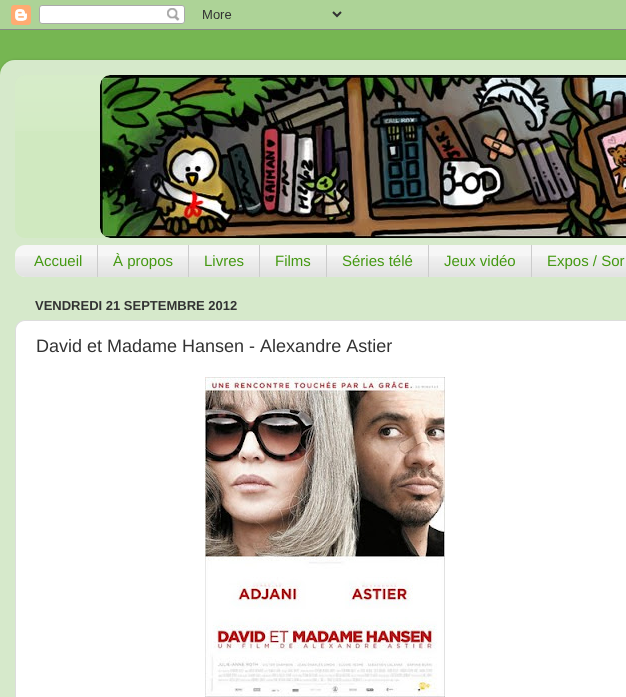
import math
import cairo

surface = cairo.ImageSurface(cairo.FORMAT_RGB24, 626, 697)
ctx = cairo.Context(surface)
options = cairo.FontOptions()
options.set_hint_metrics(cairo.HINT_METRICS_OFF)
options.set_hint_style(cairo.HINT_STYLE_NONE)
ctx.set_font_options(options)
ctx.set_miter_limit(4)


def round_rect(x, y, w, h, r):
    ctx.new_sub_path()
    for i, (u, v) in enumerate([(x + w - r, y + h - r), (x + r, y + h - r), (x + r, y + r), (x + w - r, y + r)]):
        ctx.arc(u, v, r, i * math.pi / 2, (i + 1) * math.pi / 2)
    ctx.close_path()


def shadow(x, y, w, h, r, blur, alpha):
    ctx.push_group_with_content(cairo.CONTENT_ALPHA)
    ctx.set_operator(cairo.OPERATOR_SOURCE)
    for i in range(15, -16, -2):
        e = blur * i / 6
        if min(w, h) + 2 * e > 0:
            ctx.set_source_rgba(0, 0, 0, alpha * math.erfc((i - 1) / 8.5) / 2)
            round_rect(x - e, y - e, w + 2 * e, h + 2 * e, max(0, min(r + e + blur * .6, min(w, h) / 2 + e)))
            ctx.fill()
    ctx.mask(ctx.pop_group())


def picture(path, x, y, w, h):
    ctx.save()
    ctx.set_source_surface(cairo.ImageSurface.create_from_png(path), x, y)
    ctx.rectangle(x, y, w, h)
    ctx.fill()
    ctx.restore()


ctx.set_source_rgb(0.463, 0.714, 0.322)
ctx.paint()
picture("img1.png", 0, 0, 626, 30)
ctx.save()
ctx.set_fill_rule(cairo.FILL_RULE_EVEN_ODD)
ctx.new_path()
ctx.move_to(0, 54)
ctx.line_to(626, 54)
ctx.line_to(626, 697)
ctx.line_to(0, 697)
ctx.close_path()
ctx.move_to(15, 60)
ctx.line_to(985, 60)
ctx.curve_to(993.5, 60, 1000, 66.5, 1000, 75)
ctx.line_to(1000, 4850)
ctx.curve_to(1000, 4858.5, 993.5, 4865, 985, 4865)
ctx.line_to(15, 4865)
ctx.curve_to(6.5, 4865, 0, 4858.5, 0, 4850)
ctx.line_to(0, 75)
ctx.curve_to(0, 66.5, 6.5, 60, 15, 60)
ctx.close_path()
ctx.clip()
ctx.set_source_rgb(0, 0, 0)
shadow(0, 60, 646, 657, 15, 1.5, 0.15)
ctx.restore()
picture("img2.png", 0, 60, 626, 637)
ctx.set_source_rgb(0.816, 0.914, 0.753)
round_rect(15, 75, 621, 163, 10)
ctx.fill()
picture("img3.png", 15, 75, 95, 56)
picture("img4.png", 100, 75, 526, 163)
ctx.set_source_rgb(0.961, 0.961, 0.961)
round_rect(15, 245, 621, 32, 10)
ctx.fill()
picture("img5.png", 15, 256, 611, 21)
ctx.set_source_rgb(0.8, 0.8, 0.8)
ctx.rectangle(97, 245, 1, 32)
ctx.fill()
ctx.select_font_face("Liberation Sans")
ctx.set_font_size(15)
ctx.set_source_rgb(0.267, 0.6, 0.067)
ctx.move_to(34, 266)
ctx.show_text("Accueil")
ctx.set_source_rgb(0.8, 0.8, 0.8)
ctx.rectangle(188, 245, 1, 32)
ctx.fill()
ctx.set_source_rgb(0.267, 0.6, 0.067)
ctx.move_to(113, 266)
ctx.show_text("À propos")
ctx.set_source_rgb(0.8, 0.8, 0.8)
ctx.rectangle(259, 245, 1, 32)
ctx.fill()
ctx.set_source_rgb(0.267, 0.6, 0.067)
ctx.move_to(204, 266)
ctx.show_text("Livres")
ctx.set_source_rgb(0.8, 0.8, 0.8)
ctx.rectangle(326, 245, 1, 32)
ctx.fill()
ctx.set_source_rgb(0.267, 0.6, 0.067)
ctx.move_to(275, 266)
ctx.show_text("Films")
ctx.set_source_rgb(0.8, 0.8, 0.8)
ctx.rectangle(428, 245, 1, 32)
ctx.fill()
ctx.set_source_rgb(0.267, 0.6, 0.067)
ctx.move_to(342, 266)
ctx.show_text("Séries télé")
ctx.set_source_rgb(0.8, 0.8, 0.8)
ctx.rectangle(531, 245, 1, 32)
ctx.fill()
ctx.set_source_rgb(0.267, 0.6, 0.067)
ctx.move_to(444, 266)
ctx.show_text("Jeux vidéo")
ctx.move_to(547, 266)
ctx.show_text("Expos / Sor")
ctx.select_font_face("Liberation Sans", cairo.FONT_SLANT_NORMAL, cairo.FONT_WEIGHT_BOLD)
ctx.set_font_size(13)
ctx.set_source_rgb(0.2, 0.2, 0.2)
ctx.move_to(35, 310)
ctx.show_text("VENDREDI 21 SEPTEMBRE 2012")
ctx.set_source_rgb(1, 1, 1)
round_rect(15.5, 320.5, 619, 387, 9.5)
ctx.fill_preserve()
ctx.set_source_rgb(0.867, 0.867, 0.867)
ctx.set_line_width(1)
ctx.stroke()
ctx.select_font_face("Liberation Sans")
ctx.set_font_size(18)
ctx.set_source_rgb(0.2, 0.2, 0.2)
ctx.move_to(36, 352)
ctx.show_text("David et Madame Hansen - Alexandre Astier")
picture("img6.png", 205, 377, 240, 320)
surface.write_to_png("page.png")
